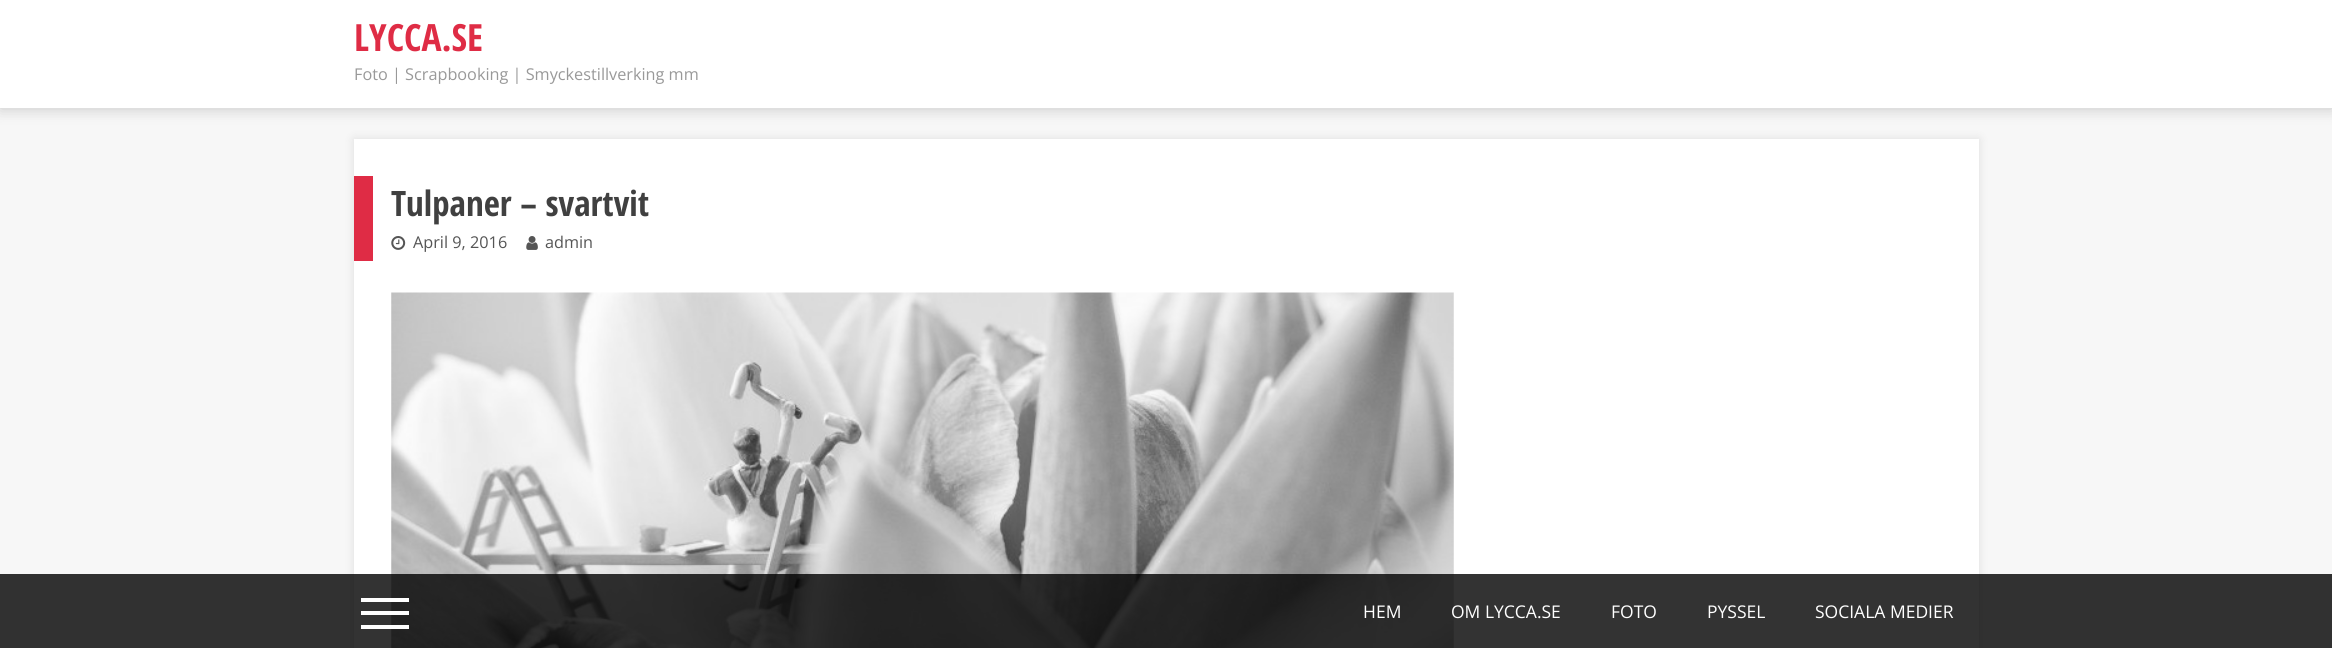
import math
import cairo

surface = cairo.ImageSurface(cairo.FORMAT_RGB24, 2332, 648)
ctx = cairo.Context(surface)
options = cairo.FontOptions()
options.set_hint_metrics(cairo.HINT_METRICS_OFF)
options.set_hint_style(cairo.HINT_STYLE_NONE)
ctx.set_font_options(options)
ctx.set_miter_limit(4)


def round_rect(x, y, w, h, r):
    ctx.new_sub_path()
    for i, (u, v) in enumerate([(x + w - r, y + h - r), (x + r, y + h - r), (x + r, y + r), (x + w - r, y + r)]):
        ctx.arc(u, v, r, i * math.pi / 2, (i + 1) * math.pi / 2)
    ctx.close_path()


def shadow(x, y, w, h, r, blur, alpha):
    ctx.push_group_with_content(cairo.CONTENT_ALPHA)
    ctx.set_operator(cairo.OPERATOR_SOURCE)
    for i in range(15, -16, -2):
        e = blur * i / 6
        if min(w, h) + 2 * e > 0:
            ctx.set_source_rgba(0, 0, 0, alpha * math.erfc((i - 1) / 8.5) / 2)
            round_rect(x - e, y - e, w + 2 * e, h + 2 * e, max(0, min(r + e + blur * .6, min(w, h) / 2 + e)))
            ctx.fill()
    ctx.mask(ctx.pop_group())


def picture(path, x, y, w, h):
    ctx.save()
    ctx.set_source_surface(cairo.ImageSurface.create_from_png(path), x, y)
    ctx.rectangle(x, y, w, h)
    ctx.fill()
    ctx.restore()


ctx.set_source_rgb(0.965, 0.965, 0.965)
ctx.paint()
ctx.set_source_rgb(0, 0, 0)
shadow(0, 1, 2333, 108, 0, 7.5, 0.2)
ctx.set_source_rgb(1, 1, 1)
ctx.rectangle(0, 0, 2332, 108)
ctx.fill()
ctx.select_font_face("Open Sans Condensed", cairo.FONT_SLANT_NORMAL, cairo.FONT_WEIGHT_BOLD)
ctx.set_font_size(37.5)
ctx.set_source_rgb(0.875, 0.173, 0.271)
ctx.move_to(354, 51)
ctx.show_text("LYCCA.SE")
ctx.select_font_face("Open Sans")
ctx.set_font_size(16.25)
ctx.set_source_rgb(0.6, 0.6, 0.6)
ctx.move_to(354, 80)
ctx.show_text("Foto | Scrapbooking | Smyckestillverking mm")
ctx.set_source_rgb(0, 0, 0)
shadow(354, 139, 1625, 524, 0, 5, 0.1)
ctx.set_source_rgb(1, 1, 1)
ctx.rectangle(354, 139, 1625, 509)
ctx.fill()
ctx.set_source_rgb(0.875, 0.173, 0.271)
ctx.rectangle(354, 176, 19, 85)
ctx.fill()
ctx.select_font_face("Open Sans Condensed", cairo.FONT_SLANT_NORMAL, cairo.FONT_WEIGHT_BOLD)
ctx.set_font_size(35)
ctx.set_source_rgb(0.251, 0.251, 0.251)
ctx.move_to(391, 216)
ctx.show_text("Tulpaner – svartvit")
picture("img1.png", 391, 236, 15, 14)
ctx.select_font_face("Open Sans")
ctx.set_font_size(16.25)
ctx.set_source_rgb(0.333, 0.333, 0.333)
ctx.move_to(413, 248)
ctx.show_text("April 9, 2016")
picture("img2.png", 526, 236, 12, 14)
ctx.move_to(545, 248)
ctx.show_text("admin")
picture("img3.png", 391, 292, 1063, 356)
ctx.set_source_rgba(0, 0, 0, 0.8)
ctx.rectangle(0, 574, 2332, 74)
ctx.fill()
ctx.set_source_rgb(1, 1, 1)
ctx.rectangle(361, 598, 48, 4)
ctx.fill()
ctx.rectangle(361, 611, 48, 4)
ctx.fill()
ctx.rectangle(361, 625, 48, 4)
ctx.fill()
ctx.set_font_size(17.5)
ctx.move_to(1363, 618)
ctx.show_text("HEM")
ctx.move_to(1451, 618)
ctx.show_text("OM LYCCA.SE")
ctx.move_to(1611, 618)
ctx.show_text("FOTO")
ctx.move_to(1707, 618)
ctx.show_text("PYSSEL")
ctx.move_to(1815, 618)
ctx.show_text("SOCIALA MEDIER")
surface.write_to_png("page.png")
